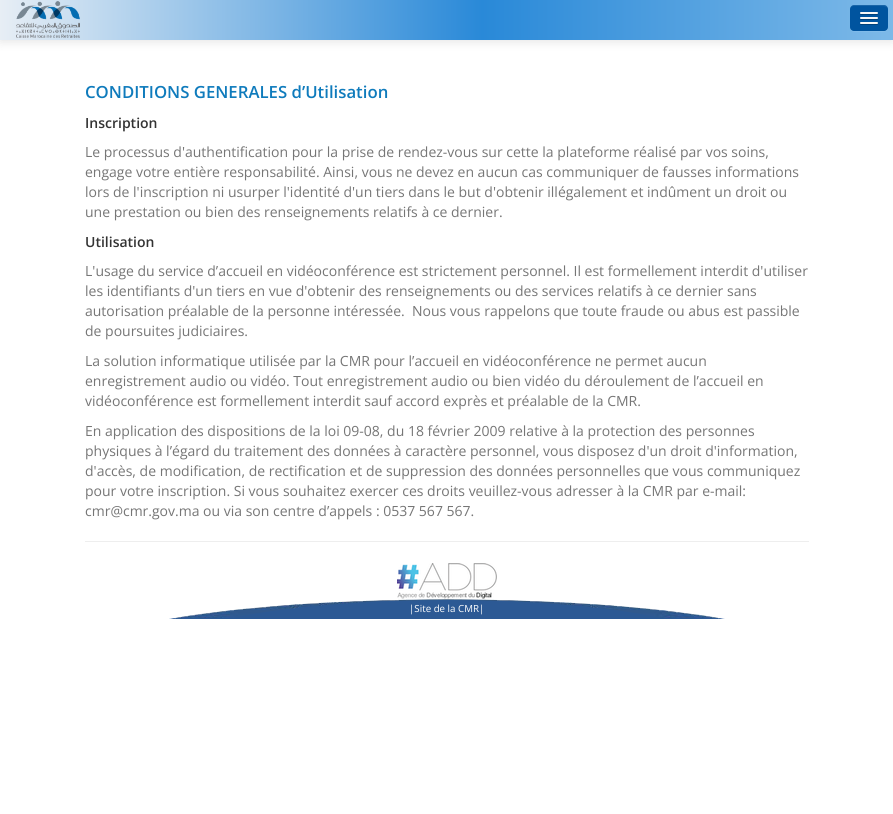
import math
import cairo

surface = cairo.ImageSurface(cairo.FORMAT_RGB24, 893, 814)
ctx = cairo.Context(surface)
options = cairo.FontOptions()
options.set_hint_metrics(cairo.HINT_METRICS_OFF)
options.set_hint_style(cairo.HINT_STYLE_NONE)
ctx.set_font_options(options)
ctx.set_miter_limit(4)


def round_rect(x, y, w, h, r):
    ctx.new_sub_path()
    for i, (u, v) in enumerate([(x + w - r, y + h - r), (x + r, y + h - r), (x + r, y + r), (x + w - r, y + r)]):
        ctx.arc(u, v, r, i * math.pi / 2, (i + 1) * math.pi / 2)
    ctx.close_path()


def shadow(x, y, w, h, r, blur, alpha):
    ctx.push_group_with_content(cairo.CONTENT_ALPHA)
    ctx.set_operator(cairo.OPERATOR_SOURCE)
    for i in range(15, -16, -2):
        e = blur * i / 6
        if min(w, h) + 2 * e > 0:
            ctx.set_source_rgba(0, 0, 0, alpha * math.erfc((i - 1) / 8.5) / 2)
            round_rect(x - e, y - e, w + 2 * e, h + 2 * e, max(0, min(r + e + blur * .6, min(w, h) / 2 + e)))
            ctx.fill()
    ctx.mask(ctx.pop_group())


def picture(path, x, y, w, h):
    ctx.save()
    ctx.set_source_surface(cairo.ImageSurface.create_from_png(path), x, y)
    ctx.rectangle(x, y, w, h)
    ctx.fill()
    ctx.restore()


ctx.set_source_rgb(1, 1, 1)
ctx.paint()
ctx.set_source_rgb(0, 0, 0)
shadow(0, 1, 893, 41, 0, 5, 0.1)
gradient = cairo.LinearGradient(0, 20, 893, 20)
gradient.add_color_stop_rgba(0, 0.906, 0.933, 0.961, 1)
gradient.add_color_stop_rgba(0.54, 0.161, 0.537, 0.847, 1)
gradient.add_color_stop_rgba(1, 0.49, 0.725, 0.91, 1)
ctx.set_source(gradient)
ctx.rectangle(0, 0, 893, 40)
ctx.fill()
picture("img1.png", 16, 1, 64, 37)
ctx.set_source_rgba(1, 1, 1, 0.07)
ctx.new_path()
ctx.move_to(850, 27)
ctx.curve_to(850, 33, 854.5, 32, 859, 32)
ctx.line_to(879, 32)
ctx.curve_to(883.5, 32, 888, 33, 888, 27)
ctx.curve_to(888, 29, 886, 31, 884, 31)
ctx.line_to(854, 31)
ctx.curve_to(852, 31, 850, 29, 850, 27)
ctx.close_path()
ctx.fill()
ctx.set_source_rgb(0, 0.329, 0.624)
round_rect(850, 5, 38, 26, 4)
ctx.fill()
ctx.set_source_rgba(1, 1, 1, 0.1)
ctx.set_fill_rule(cairo.FILL_RULE_EVEN_ODD)
ctx.new_path()
ctx.move_to(854, 6)
ctx.line_to(879, 6)
ctx.curve_to(885.5, 6, 887.5, 6.5, 888, 9.5)
ctx.curve_to(888, 4, 883, 5, 879, 5)
ctx.line_to(859, 5)
ctx.curve_to(854.5, 5, 850, 4, 850, 9.5)
ctx.curve_to(850.5, 7.5, 851.5, 6, 854, 6)
ctx.close_path()
ctx.move_to(850.5, 29)
ctx.line_to(850, 27)
ctx.close_path()
ctx.fill()
ctx.set_source_rgb(0, 0.247, 0.467)
ctx.set_fill_rule(cairo.FILL_RULE_WINDING)
ctx.new_path()
ctx.move_to(860, 13.5)
ctx.curve_to(859, 15.5, 863.5, 15, 863.5, 15)
ctx.line_to(874.5, 15)
ctx.curve_to(874.5, 15, 879, 15.5, 878, 13.5)
ctx.curve_to(877, 14.5, 870.5, 14, 869, 14)
ctx.curve_to(867.5, 14, 861, 14.5, 860, 13.5)
ctx.close_path()
ctx.fill()
ctx.set_source_rgb(0.961, 0.961, 0.961)
round_rect(860, 12, 18, 2, 1)
ctx.fill()
ctx.set_source_rgb(0, 0.247, 0.467)
ctx.new_path()
ctx.move_to(860, 18.5)
ctx.curve_to(859, 20.5, 863.5, 20, 863.5, 20)
ctx.line_to(874.5, 20)
ctx.curve_to(874.5, 20, 879, 20.5, 878, 18.5)
ctx.curve_to(877, 19.5, 870.5, 19, 869, 19)
ctx.curve_to(867.5, 19, 861, 19.5, 860, 18.5)
ctx.close_path()
ctx.fill()
ctx.set_source_rgb(0.961, 0.961, 0.961)
round_rect(860, 17, 18, 2, 1)
ctx.fill()
ctx.set_source_rgb(0, 0.247, 0.467)
ctx.new_path()
ctx.move_to(860, 23.5)
ctx.curve_to(859, 25.5, 863.5, 25, 863.5, 25)
ctx.line_to(874.5, 25)
ctx.curve_to(874.5, 25, 879, 25.5, 878, 23.5)
ctx.curve_to(877, 24.5, 870.5, 24, 869, 24)
ctx.curve_to(867.5, 24, 861, 24.5, 860, 23.5)
ctx.close_path()
ctx.fill()
ctx.set_source_rgb(0.961, 0.961, 0.961)
round_rect(860, 22, 18, 2, 1)
ctx.fill()
ctx.select_font_face("Open Sans SemiBold")
ctx.set_font_size(16.75)
ctx.set_source_rgb(0.059, 0.482, 0.737)
ctx.move_to(85, 98)
ctx.show_text("CONDITIONS GENERALES d’Utilisation")
ctx.set_font_size(14)
ctx.set_source_rgb(0.2, 0.2, 0.2)
ctx.move_to(85, 128)
ctx.show_text("Inscription")
ctx.select_font_face("Open Sans")
ctx.set_source_rgb(0.463, 0.463, 0.463)
ctx.move_to(85, 157)
ctx.show_text("Le processus d'authentification pour la prise de rendez-vous sur cette la plateforme réalisé par vos soins,")
ctx.move_to(85, 177)
ctx.show_text("engage votre entière responsabilité. Ainsi, vous ne devez en aucun cas communiquer de fausses informations")
ctx.move_to(85, 197)
ctx.show_text("lors de l'inscription ni usurper l'identité d'un tiers dans le but d'obtenir illégalement et indûment un droit ou")
ctx.move_to(85, 217)
ctx.show_text("une prestation ou bien des renseignements relatifs à ce dernier.")
ctx.select_font_face("Open Sans SemiBold")
ctx.set_source_rgb(0.2, 0.2, 0.2)
ctx.move_to(85, 247)
ctx.show_text("Utilisation")
ctx.select_font_face("Open Sans")
ctx.set_source_rgb(0.463, 0.463, 0.463)
ctx.move_to(85, 276)
ctx.show_text("L'usage du service d’accueil en vidéoconférence est strictement personnel. Il est formellement interdit d'utiliser")
ctx.move_to(85, 296)
ctx.show_text("les identifiants d'un tiers en vue d'obtenir des renseignements ou des services relatifs à ce dernier sans")
ctx.move_to(85, 316)
ctx.show_text("autorisation préalable de la personne intéressée.  Nous vous rappelons que toute fraude ou abus est passible")
ctx.move_to(85, 336)
ctx.show_text("de poursuites judiciaires.")
ctx.move_to(85, 366)
ctx.show_text("La solution informatique utilisée par la CMR pour l’accueil en vidéoconférence ne permet aucun")
ctx.move_to(85, 386)
ctx.show_text("enregistrement audio ou vidéo. Tout enregistrement audio ou bien vidéo du déroulement de l’accueil en")
ctx.move_to(85, 406)
ctx.show_text("vidéoconférence est formellement interdit sauf accord exprès et préalable de la CMR.")
ctx.move_to(85, 436)
ctx.show_text("En application des dispositions de la loi 09-08, du 18 février 2009 relative à la protection des personnes")
ctx.move_to(85, 456)
ctx.show_text("physiques à l’égard du traitement des données à caractère personnel, vous disposez d'un droit d'information,")
ctx.move_to(85, 476)
ctx.show_text("d'accès, de modification, de rectification et de suppression des données personnelles que vous communiquez")
ctx.move_to(85, 496)
ctx.show_text("pour votre inscription. Si vous souhaitez exercer ces droits veuillez-vous adresser à la CMR par e-mail:")
ctx.move_to(85, 516)
ctx.show_text("cmr@cmr.gov.ma ou via son centre d’appels : 0537 567 567.")
ctx.set_source_rgb(0.933, 0.933, 0.933)
ctx.rectangle(85, 541, 724, 1)
ctx.fill()
picture("img2.png", 397, 563, 100, 36)
picture("img3.png", 169, 599, 556, 20)
ctx.set_font_size(9.75)
ctx.set_source_rgb(1, 1, 1)
ctx.move_to(409, 612)
ctx.show_text("|Site de la CMR|")
surface.write_to_png("page.png")
